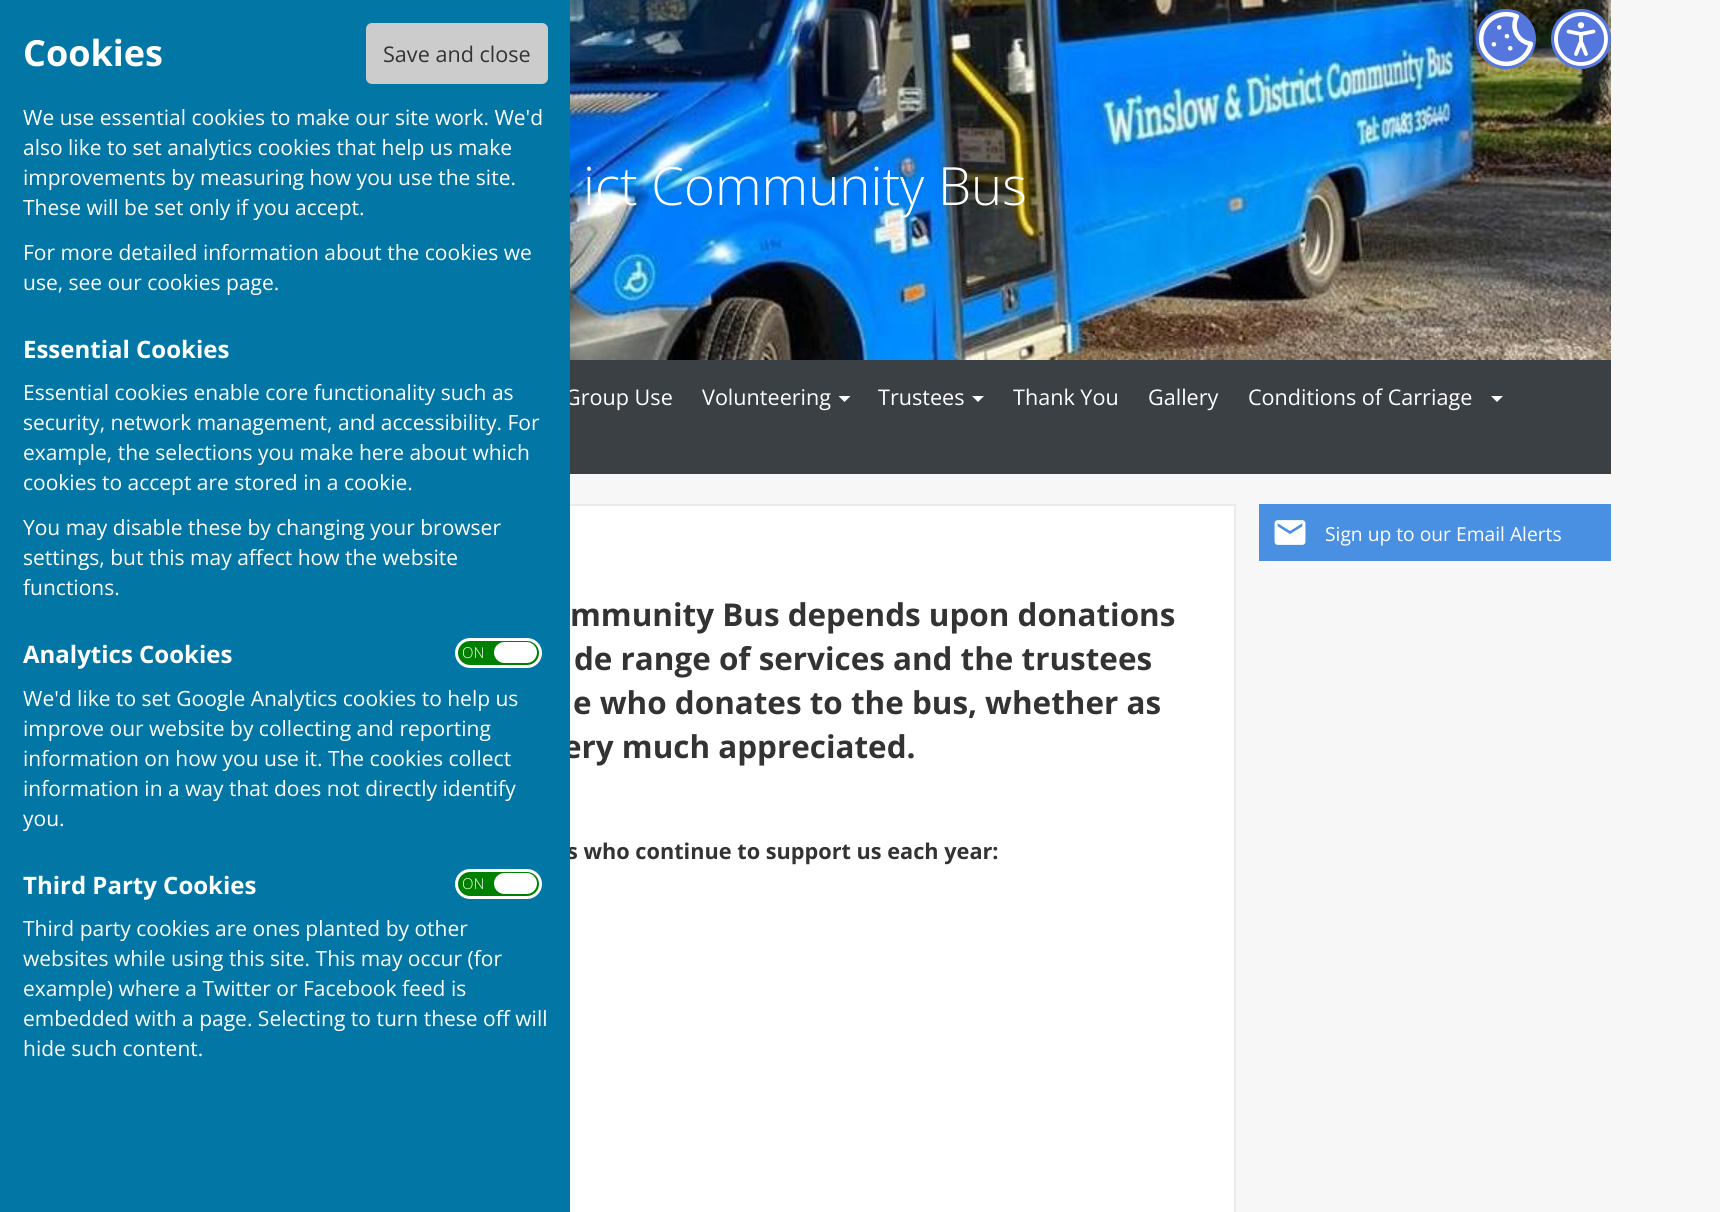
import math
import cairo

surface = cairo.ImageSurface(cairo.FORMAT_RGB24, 1720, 1212)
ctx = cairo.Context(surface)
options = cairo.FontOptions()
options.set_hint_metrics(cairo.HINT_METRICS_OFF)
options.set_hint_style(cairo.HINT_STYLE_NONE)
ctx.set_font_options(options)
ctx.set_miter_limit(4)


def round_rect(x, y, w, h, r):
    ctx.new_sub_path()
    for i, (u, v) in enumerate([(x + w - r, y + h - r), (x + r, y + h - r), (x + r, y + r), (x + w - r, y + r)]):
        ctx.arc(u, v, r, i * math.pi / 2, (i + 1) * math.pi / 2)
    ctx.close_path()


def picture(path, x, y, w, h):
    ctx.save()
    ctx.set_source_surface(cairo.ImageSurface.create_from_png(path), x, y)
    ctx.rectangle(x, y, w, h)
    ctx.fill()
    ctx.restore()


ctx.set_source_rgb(0.965, 0.965, 0.965)
ctx.paint()
ctx.set_source_rgb(0.231, 0.251, 0.267)
ctx.rectangle(570, 360, 1041, 114)
ctx.fill()
ctx.select_font_face("Open Sans")
ctx.set_font_size(21.6)
ctx.set_source_rgb(1, 1, 1)
ctx.move_to(565, 405)
ctx.show_text("Group Use")
ctx.rectangle(570, 506, 664, 706)
ctx.fill()
ctx.rectangle(112, 505, 1123, 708)
ctx.set_source_rgb(0.918, 0.918, 0.918)
ctx.stroke()
ctx.select_font_face("Open Sans", cairo.FONT_SLANT_NORMAL, cairo.FONT_WEIGHT_BOLD)
ctx.set_font_size(31.4)
ctx.set_source_rgb(0.2, 0.2, 0.2)
ctx.move_to(563, 758)
ctx.show_text("ery much appreciated.")
ctx.set_font_size(21.7)
ctx.move_to(567, 859)
ctx.show_text("s who continue to support us each year:")
ctx.set_source_rgb(0.008, 0.463, 0.647)
ctx.rectangle(0, 0, 570, 1212)
ctx.fill()
ctx.set_font_size(36)
ctx.set_source_rgb(1, 1, 1)
ctx.move_to(23, 66)
ctx.show_text("Cookies")
ctx.set_source_rgb(0.8, 0.8, 0.8)
round_rect(366, 23, 182, 61, 6)
ctx.fill()
ctx.select_font_face("Open Sans")
ctx.set_font_size(21.6)
ctx.set_source_rgb(0.2, 0.2, 0.2)
ctx.move_to(383, 62)
ctx.show_text("Save and close")
ctx.set_font_size(21)
ctx.set_source_rgb(1, 1, 1)
ctx.move_to(23, 125)
ctx.show_text("We use essential cookies to make our site work. We'd")
ctx.move_to(23, 155)
ctx.show_text("also like to set analytics cookies that help us make")
ctx.move_to(23, 185)
ctx.show_text("improvements by measuring how you use the site.")
ctx.move_to(23, 215)
ctx.show_text("These will be set only if you accept.")
ctx.move_to(23, 260)
ctx.show_text("For more detailed information about the cookies we")
ctx.move_to(23, 290)
ctx.show_text("use, see our cookies page.")
ctx.select_font_face("Open Sans", cairo.FONT_SLANT_NORMAL, cairo.FONT_WEIGHT_BOLD)
ctx.set_font_size(24)
ctx.move_to(23, 358)
ctx.show_text("Essential Cookies")
ctx.select_font_face("Open Sans")
ctx.set_font_size(21)
ctx.move_to(23, 400)
ctx.show_text("Essential cookies enable core functionality such as")
ctx.move_to(23, 430)
ctx.show_text("security, network management, and accessibility. For")
ctx.move_to(23, 460)
ctx.show_text("example, the selections you make here about which")
ctx.move_to(23, 490)
ctx.show_text("cookies to accept are stored in a cookie.")
ctx.move_to(23, 535)
ctx.show_text("You may disable these by changing your browser")
ctx.move_to(23, 565)
ctx.show_text("settings, but this may affect how the website")
ctx.move_to(23, 595)
ctx.show_text("functions.")
ctx.select_font_face("Open Sans", cairo.FONT_SLANT_NORMAL, cairo.FONT_WEIGHT_BOLD)
ctx.set_font_size(24)
ctx.move_to(23, 663)
ctx.show_text("Analytics Cookies")
ctx.set_source_rgb(0, 0.502, 0)
round_rect(456.5, 639.5, 84, 27, 13.5)
ctx.fill_preserve()
ctx.set_source_rgb(1, 1, 1)
ctx.set_line_width(3)
ctx.stroke()
ctx.select_font_face("Open Sans Light")
ctx.set_font_size(15)
ctx.move_to(462, 658)
ctx.show_text("ON")
round_rect(494, 642, 43, 21, 10.5)
ctx.fill()
ctx.select_font_face("Open Sans")
ctx.set_font_size(21)
ctx.move_to(23, 706)
ctx.show_text("We'd like to set Google Analytics cookies to help us")
ctx.move_to(23, 736)
ctx.show_text("improve our website by collecting and reporting")
ctx.move_to(23, 766)
ctx.show_text("information on how you use it. The cookies collect")
ctx.move_to(23, 796)
ctx.show_text("information in a way that does not directly identify")
ctx.move_to(23, 826)
ctx.show_text("you.")
ctx.select_font_face("Open Sans", cairo.FONT_SLANT_NORMAL, cairo.FONT_WEIGHT_BOLD)
ctx.set_font_size(24)
ctx.move_to(23, 894)
ctx.show_text("Third Party Cookies")
ctx.set_source_rgb(0, 0.502, 0)
round_rect(456.5, 870.5, 84, 27, 13.5)
ctx.fill_preserve()
ctx.set_source_rgb(1, 1, 1)
ctx.stroke()
ctx.select_font_face("Open Sans Light")
ctx.set_font_size(15)
ctx.move_to(462, 889)
ctx.show_text("ON")
round_rect(494, 873, 43, 21, 10.5)
ctx.fill()
ctx.select_font_face("Open Sans")
ctx.set_font_size(21)
ctx.move_to(23, 936)
ctx.show_text("Third party cookies are ones planted by other")
ctx.move_to(23, 966)
ctx.show_text("websites while using this site. This may occur (for")
ctx.move_to(23, 996)
ctx.show_text("example) where a Twitter or Facebook feed is")
ctx.move_to(23, 1026)
ctx.show_text("embedded with a page. Selecting to turn these off will")
ctx.move_to(23, 1056)
ctx.show_text("hide such content.")
picture("img1.png", 570, 0, 1041, 360)
ctx.set_source_rgb(0.333, 0.467, 0.867)
ctx.arc(1506, 39, 30, 0, 2 * math.pi)
ctx.fill()
picture("img2.png", 1478, 11, 56, 56)
ctx.arc(1581, 39, 30, 0, 2 * math.pi)
ctx.fill()
picture("img3.png", 1554, 12, 54, 54)
ctx.select_font_face("Open Sans Light")
ctx.set_font_size(52.75)
ctx.set_source_rgb(1, 1, 1)
ctx.move_to(583, 205)
ctx.show_text("ict Community Bus")
ctx.select_font_face("Open Sans")
ctx.set_font_size(21.6)
ctx.move_to(702, 405)
ctx.show_text("Volunteering")
ctx.new_path()
ctx.move_to(838.5, 396)
ctx.line_to(850.5, 396)
ctx.line_to(844.5, 402)
ctx.close_path()
ctx.fill()
ctx.move_to(878, 405)
ctx.show_text("Trustees")
ctx.new_path()
ctx.move_to(972, 396)
ctx.line_to(984, 396)
ctx.line_to(978, 402)
ctx.close_path()
ctx.fill()
ctx.move_to(1013, 405)
ctx.show_text("Thank You")
ctx.move_to(1148, 405)
ctx.show_text("Gallery")
ctx.move_to(1248, 405)
ctx.show_text("Conditions of Carriage")
ctx.new_path()
ctx.move_to(1491, 396)
ctx.line_to(1503, 396)
ctx.line_to(1497, 402)
ctx.close_path()
ctx.fill()
ctx.set_source_rgb(0.29, 0.565, 0.886)
ctx.rectangle(1259, 504, 352, 57)
ctx.fill()
picture("img4.png", 1274, 520, 32, 25)
ctx.set_font_size(19.25)
ctx.set_source_rgb(1, 1, 1)
ctx.move_to(1325, 541)
ctx.show_text("Sign up to our Email Alerts")
ctx.select_font_face("Open Sans", cairo.FONT_SLANT_NORMAL, cairo.FONT_WEIGHT_BOLD)
ctx.set_font_size(31.4)
ctx.set_source_rgb(0.2, 0.2, 0.2)
ctx.move_to(570, 626)
ctx.show_text("mmunity Bus depends upon donations")
ctx.move_to(574, 670)
ctx.show_text("de range of services and the trustees")
ctx.move_to(573, 714)
ctx.show_text("e who donates to the bus, whether as")
surface.write_to_png("page.png")
